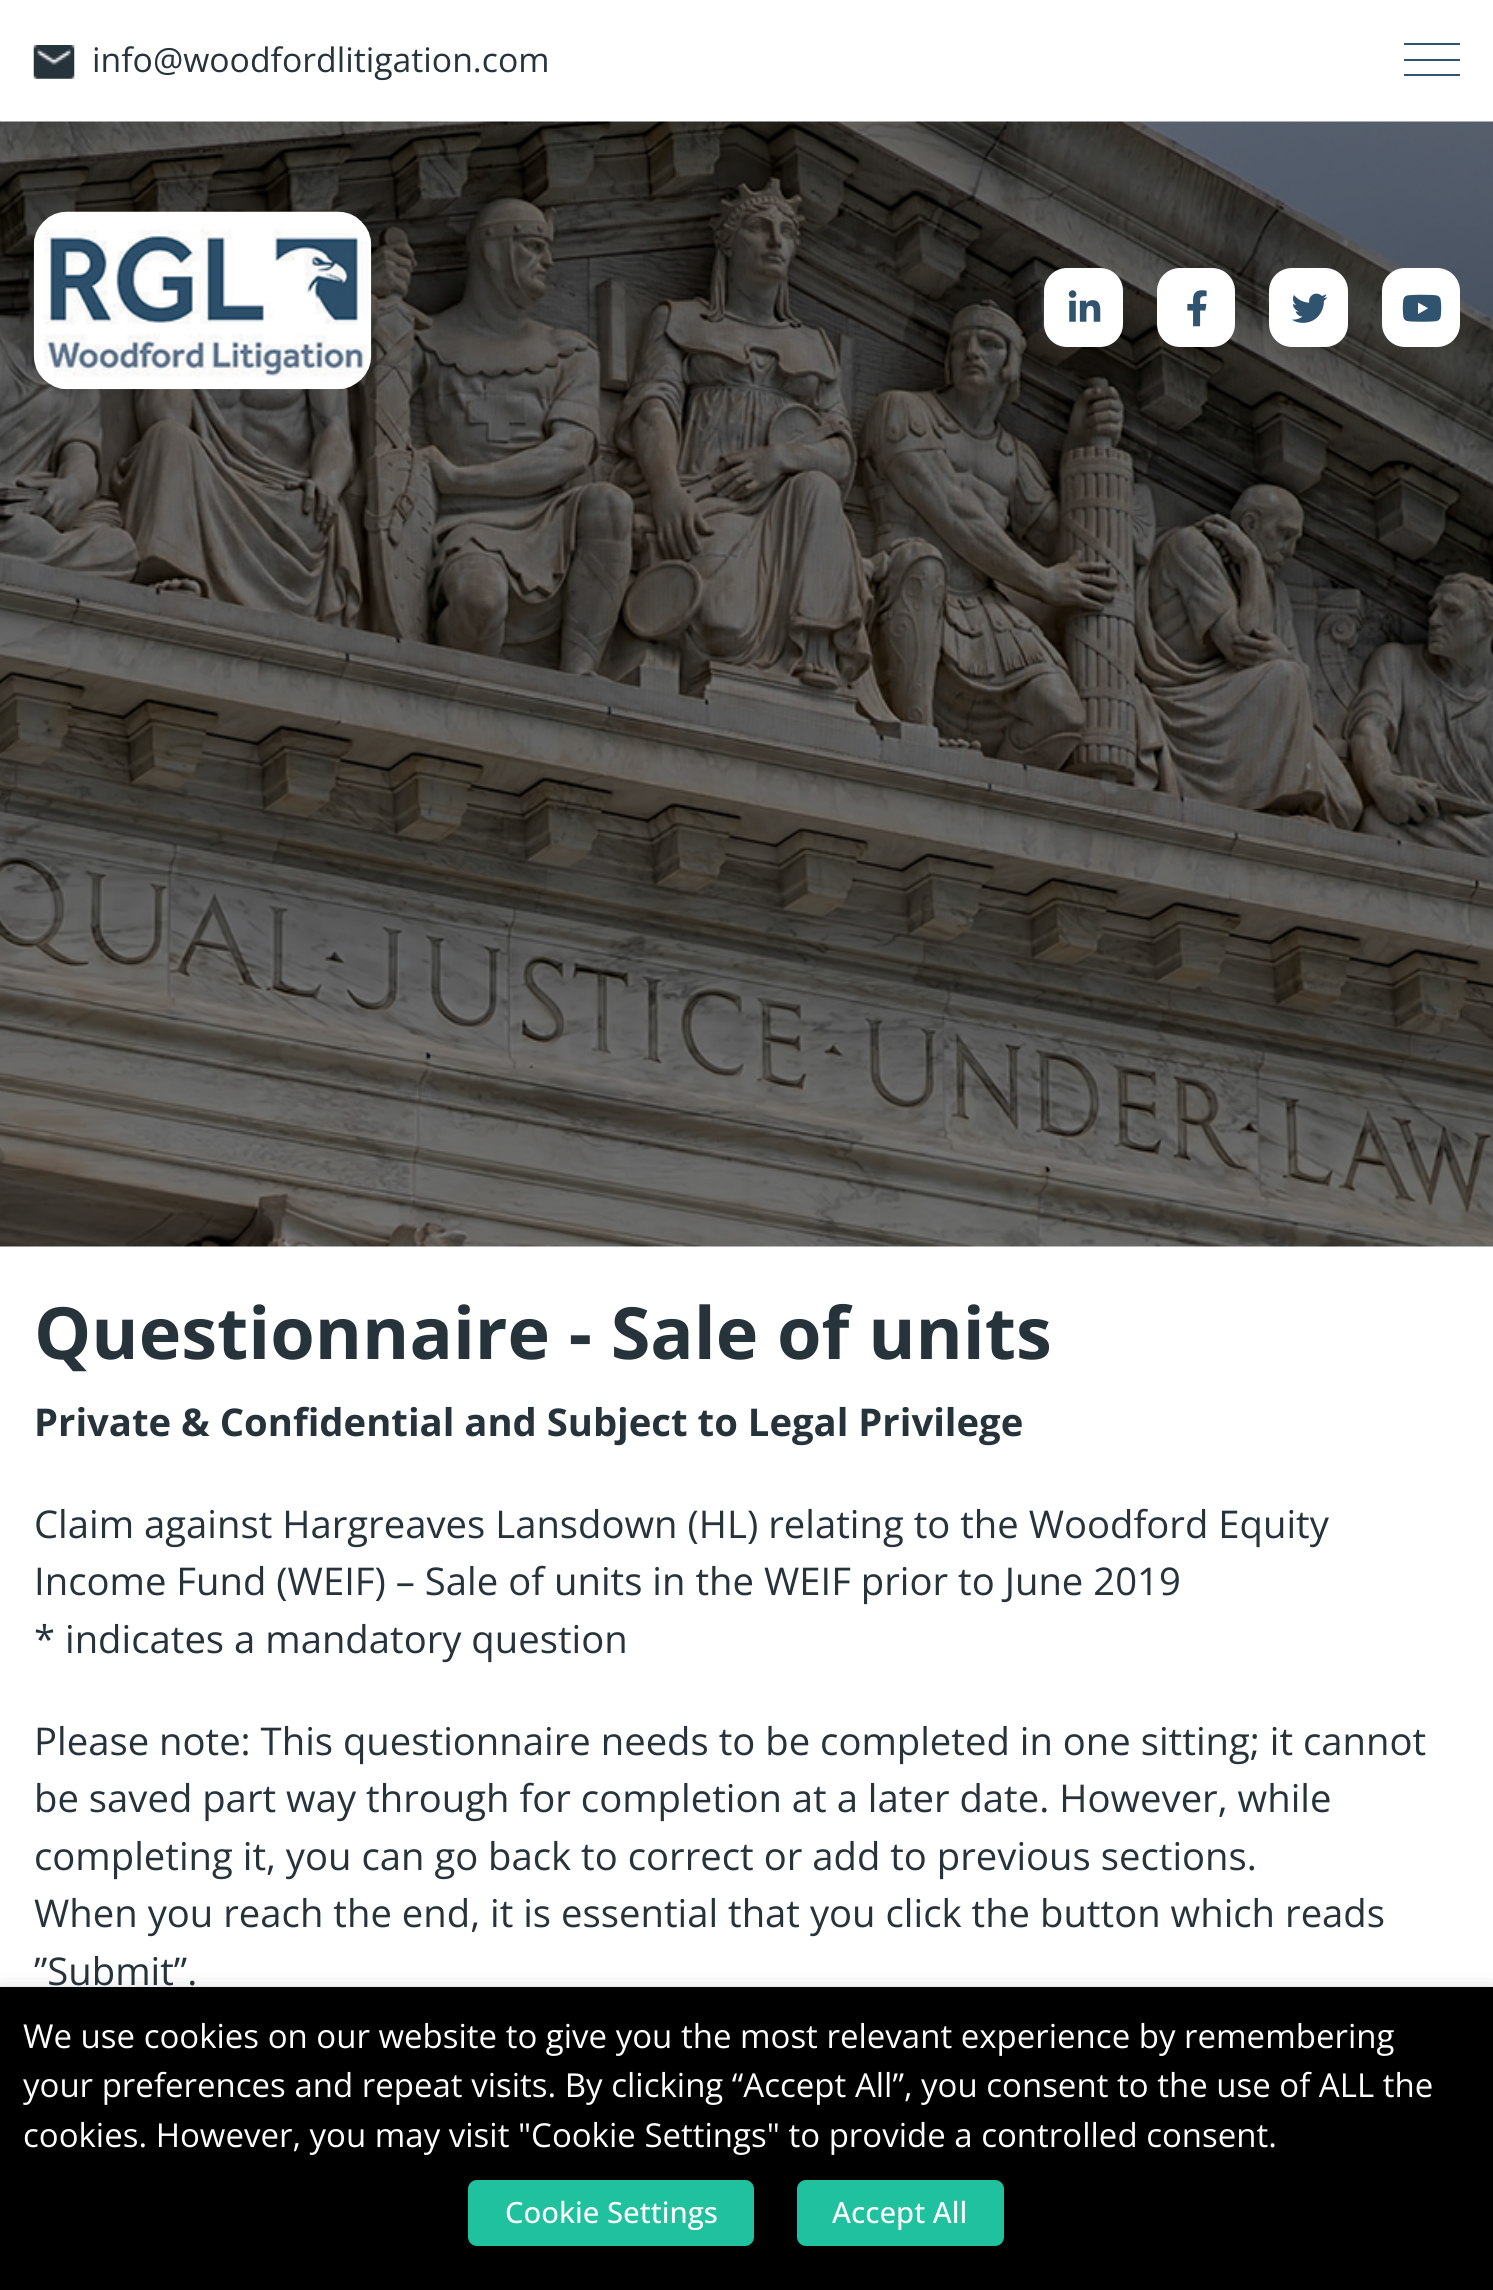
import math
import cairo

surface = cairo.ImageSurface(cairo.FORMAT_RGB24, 1493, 2290)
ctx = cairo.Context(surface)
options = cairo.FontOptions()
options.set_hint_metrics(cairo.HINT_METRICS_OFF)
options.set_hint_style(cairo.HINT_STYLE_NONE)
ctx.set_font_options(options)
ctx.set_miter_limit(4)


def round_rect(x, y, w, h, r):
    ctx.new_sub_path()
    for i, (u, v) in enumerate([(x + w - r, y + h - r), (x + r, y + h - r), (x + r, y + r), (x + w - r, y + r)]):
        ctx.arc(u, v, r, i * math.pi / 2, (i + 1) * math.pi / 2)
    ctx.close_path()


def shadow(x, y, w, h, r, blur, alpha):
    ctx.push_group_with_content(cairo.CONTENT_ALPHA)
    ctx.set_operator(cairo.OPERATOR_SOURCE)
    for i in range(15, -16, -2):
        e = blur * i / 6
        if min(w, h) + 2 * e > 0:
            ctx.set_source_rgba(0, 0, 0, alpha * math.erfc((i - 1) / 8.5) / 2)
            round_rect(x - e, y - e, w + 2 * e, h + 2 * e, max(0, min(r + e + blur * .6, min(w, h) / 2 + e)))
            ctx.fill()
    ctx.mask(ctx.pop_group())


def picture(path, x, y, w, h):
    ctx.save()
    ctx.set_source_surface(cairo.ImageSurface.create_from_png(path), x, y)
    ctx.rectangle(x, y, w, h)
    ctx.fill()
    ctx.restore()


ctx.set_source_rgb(1, 1, 1)
ctx.paint()
picture("img1.png", 33, 45, 42, 34)
ctx.select_font_face("Open Sans")
ctx.set_font_size(33.75)
ctx.set_source_rgb(0.149, 0.2, 0.231)
ctx.move_to(92, 72)
ctx.show_text("info@woodfordlitigation.com")
ctx.set_source_rgb(0.188, 0.325, 0.435)
ctx.rectangle(1404, 43, 56, 2)
ctx.fill()
ctx.rectangle(1404, 59, 56, 2)
ctx.fill()
ctx.rectangle(1404, 74, 56, 2)
ctx.fill()
picture("img7.png", 0, 121, 1493, 1126)
picture("img2.png", 33, 211, 339, 179)
ctx.set_source_rgb(1, 1, 1)
round_rect(1044, 268, 79, 79, 23)
ctx.fill()
picture("img3.png", 1068, 290, 33, 32)
round_rect(1157, 268, 78, 79, 23)
ctx.fill()
picture("img4.png", 1187, 290, 20, 37)
round_rect(1269, 268, 79, 79, 23)
ctx.fill()
picture("img5.png", 1291, 293, 37, 30)
round_rect(1382, 268, 78, 79, 23)
ctx.fill()
picture("img6.png", 1402, 294, 40, 28)
ctx.select_font_face("Open Sans", cairo.FONT_SLANT_NORMAL, cairo.FONT_WEIGHT_BOLD)
ctx.set_font_size(72)
ctx.set_source_rgb(0.149, 0.2, 0.231)
ctx.move_to(34, 1359)
ctx.show_text("Questionnaire - Sale of units")
ctx.set_font_size(38.25)
ctx.move_to(34, 1436)
ctx.show_text("Private & Confidential and Subject to Legal Privilege")
ctx.select_font_face("Open Sans")
ctx.move_to(34, 1538)
ctx.show_text("Claim against Hargreaves Lansdown (HL) relating to the Woodford Equity")
ctx.move_to(34, 1595)
ctx.show_text("Income Fund (WEIF) – Sale of units in the WEIF prior to June 2019")
ctx.move_to(34, 1653)
ctx.show_text("* indicates a mandatory question")
ctx.move_to(34, 1755)
ctx.show_text("Please note: This questionnaire needs to be completed in one sitting; it cannot")
ctx.move_to(34, 1812)
ctx.show_text("be saved part way through for completion at a later date. However, while")
ctx.move_to(34, 1870)
ctx.show_text("completing it, you can go back to correct or add to previous sections.")
ctx.move_to(34, 1927)
ctx.show_text("When you reach the end, it is essential that you click the button which reads")
ctx.move_to(34, 1985)
ctx.show_text("”Submit”.")
ctx.set_source_rgb(0, 0, 0)
shadow(0, 1998, 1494, 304, 0, 11, 0.5)
ctx.set_source_rgb(0, 0, 0)
ctx.rectangle(0, 1987, 1493, 303)
ctx.fill()
ctx.set_font_size(33)
ctx.set_source_rgb(1, 1, 1)
ctx.move_to(23, 2048)
ctx.show_text("We use cookies on our website to give you the most relevant experience by remembering")
ctx.move_to(23, 2097)
ctx.show_text("your preferences and repeat visits. By clicking “Accept All”, you consent to the use of ALL the")
ctx.move_to(23, 2147)
ctx.show_text("cookies. However, you may visit \"Cookie Settings\" to provide a controlled consent.")
ctx.set_source_rgb(0.125, 0.757, 0.62)
round_rect(468, 2180, 286, 66, 9)
ctx.fill()
ctx.select_font_face("Open Sans Medium")
ctx.set_font_size(29.25)
ctx.set_source_rgb(1, 1, 1)
ctx.move_to(505, 2223)
ctx.show_text("Cookie Settings")
ctx.set_source_rgb(0.125, 0.757, 0.62)
round_rect(797, 2180, 207, 66, 9)
ctx.fill()
ctx.set_source_rgb(1, 1, 1)
ctx.move_to(832, 2223)
ctx.show_text("Accept All")
surface.write_to_png("page.png")
